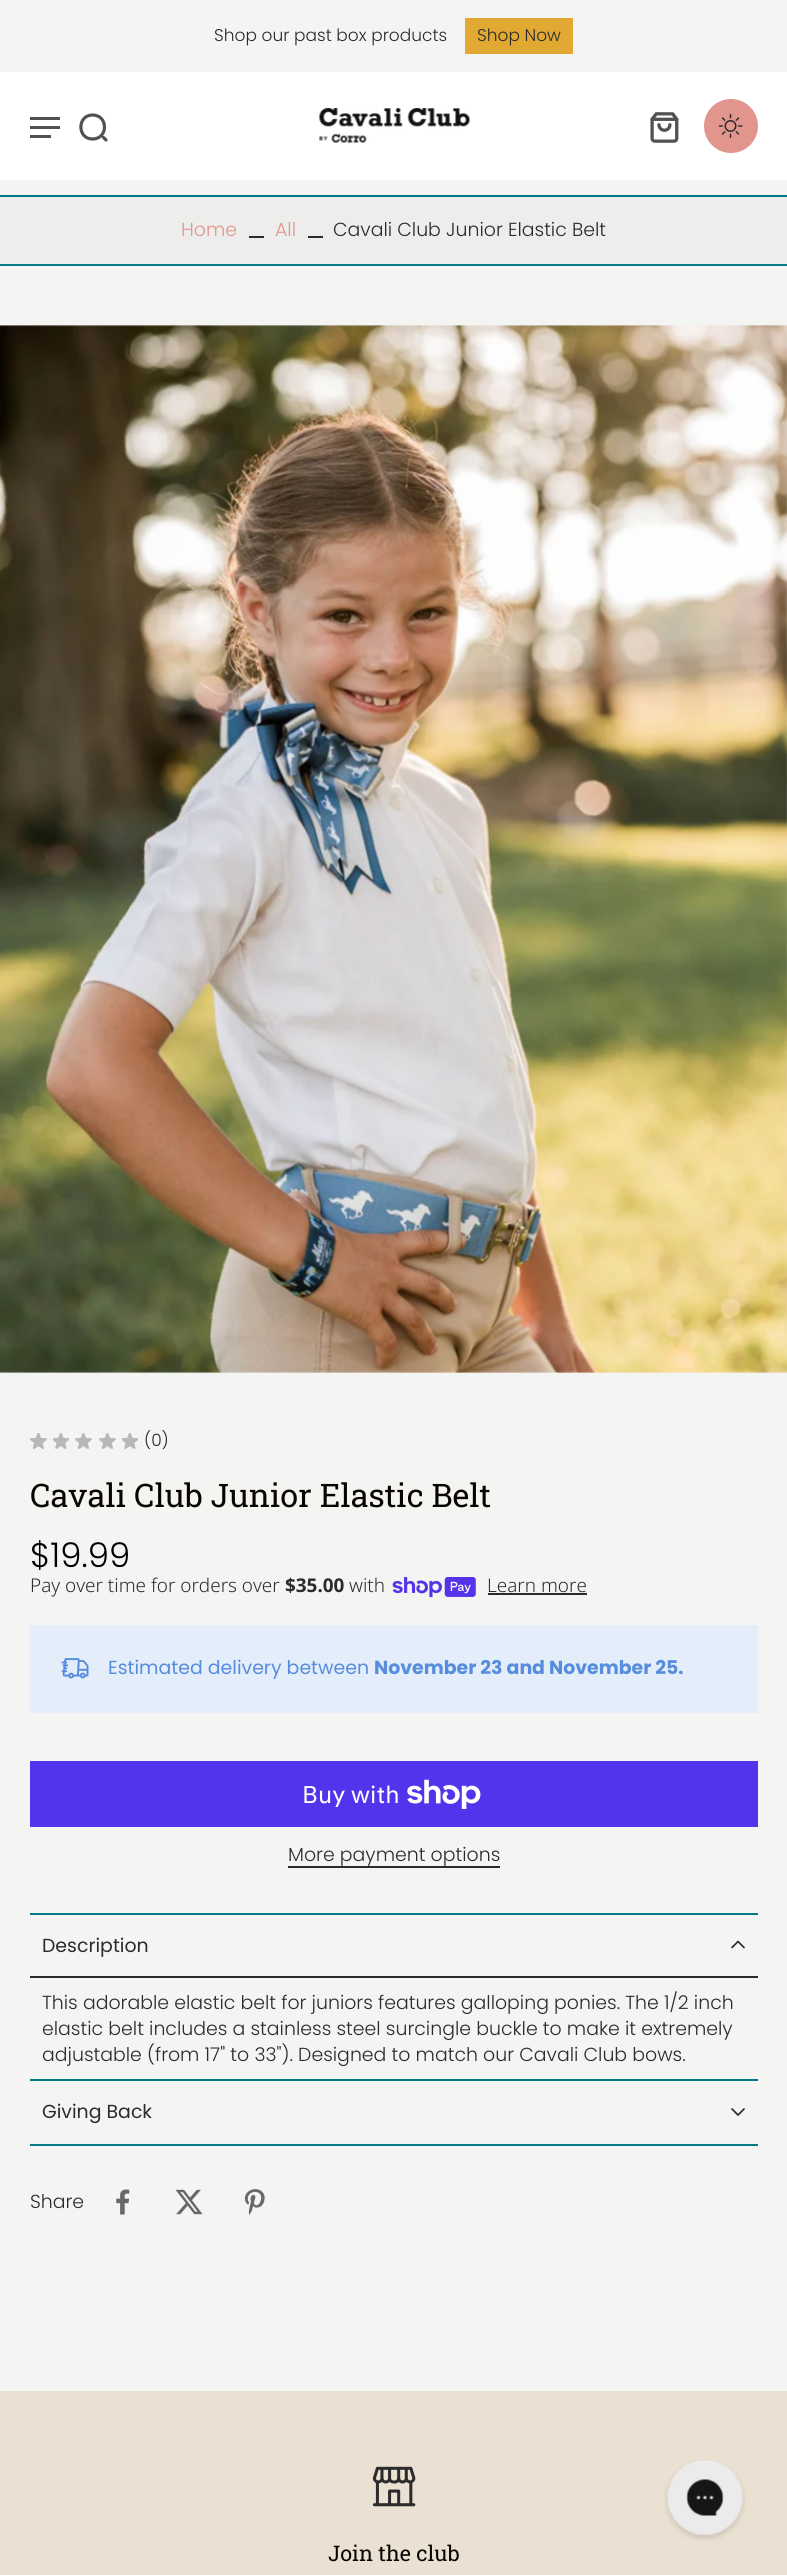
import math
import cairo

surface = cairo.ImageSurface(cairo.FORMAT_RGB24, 787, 2575)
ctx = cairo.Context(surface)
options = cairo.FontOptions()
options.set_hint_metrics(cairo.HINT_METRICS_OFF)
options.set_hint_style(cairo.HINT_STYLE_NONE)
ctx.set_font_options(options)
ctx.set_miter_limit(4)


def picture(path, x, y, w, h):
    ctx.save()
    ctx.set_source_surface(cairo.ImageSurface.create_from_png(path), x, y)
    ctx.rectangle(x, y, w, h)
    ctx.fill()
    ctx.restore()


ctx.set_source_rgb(0.957, 0.957, 0.949)
ctx.paint()
ctx.select_font_face("Poppins Light")
ctx.set_font_size(17)
ctx.set_source_rgb(0.169, 0.169, 0.169)
ctx.move_to(214, 41)
ctx.show_text("Shop our past box products")
ctx.set_source_rgb(0.882, 0.659, 0.196)
ctx.rectangle(465, 18, 108, 36)
ctx.fill()
ctx.set_source_rgb(0.169, 0.169, 0.169)
ctx.move_to(477, 41)
ctx.show_text("Shop Now")
ctx.set_source_rgb(1, 1, 1)
ctx.rectangle(0, 72, 787, 108)
ctx.fill()
ctx.new_path()
ctx.move_to(92.5, 139)
ctx.curve_to(108.5, 139, 108.5, 115, 92.5, 115)
ctx.curve_to(77, 115, 77, 139, 92.5, 139)
ctx.close_path()
ctx.move_to(106, 140)
ctx.line_to(103.5, 137.5)
ctx.set_source_rgb(0.322, 0.318, 0.318)
ctx.set_line_width(3.2)
ctx.set_line_cap(cairo.LINE_CAP_ROUND)
ctx.set_line_join(cairo.LINE_JOIN_ROUND)
ctx.stroke()
picture("img1.png", 650, 112, 29, 31)
ctx.set_source_rgb(0.886, 0.584, 0.553)
ctx.arc(731, 126, 27, 0, 2 * math.pi)
ctx.fill()
picture("img2.png", 719, 114, 24, 24)
picture("img3.png", 30, 117, 30, 21)
picture("img4.png", 319, 108, 151, 35)
ctx.set_source_rgb(0.929, 0.929, 0.918)
ctx.rectangle(0, 197, 787, 67)
ctx.fill()
ctx.set_source_rgb(0.016, 0.482, 0.518)
ctx.rectangle(0, 195, 787, 2)
ctx.fill()
ctx.rectangle(0, 264, 787, 2)
ctx.fill()
ctx.set_font_size(18.9)
ctx.set_source_rgb(0.886, 0.584, 0.553)
ctx.move_to(181, 236)
ctx.show_text("Home")
ctx.move_to(275, 236)
ctx.show_text("All")
ctx.set_source_rgb(0.169, 0.169, 0.169)
ctx.move_to(333, 236)
ctx.show_text("Cavali Club Junior Elastic Belt")
ctx.rectangle(249, 236, 15, 2)
ctx.fill()
ctx.rectangle(308, 236, 15, 2)
ctx.fill()
picture("img5.png", 0, 325, 787, 1048)
picture("img6.png", 30, 1433, 17, 16)
picture("img7.png", 53, 1433, 16, 16)
picture("img6.png", 75, 1433, 17, 16)
picture("img6.png", 99, 1433, 17, 16)
picture("img7.png", 122, 1433, 16, 16)
ctx.set_font_size(17)
ctx.move_to(144, 1446)
ctx.show_text("(0)")
ctx.select_font_face("Roboto Slab")
ctx.set_font_size(32.4)
ctx.set_source_rgb(0.039, 0.016, 0)
ctx.move_to(30, 1507)
ctx.show_text("Cavali Club Junior Elastic Belt")
ctx.select_font_face("Poppins Light")
ctx.set_font_size(34)
ctx.set_source_rgb(0, 0, 0)
ctx.move_to(30, 1567)
ctx.show_text("$19.99")
ctx.select_font_face("Noto Sans Light")
ctx.set_font_size(18.9)
ctx.set_source_rgb(0.169, 0.169, 0.169)
ctx.move_to(30, 1592)
ctx.show_text("Pay over time for orders over")
ctx.select_font_face("Noto Sans", cairo.FONT_SLANT_NORMAL, cairo.FONT_WEIGHT_BOLD)
ctx.move_to(285, 1592)
ctx.show_text("$35.00")
ctx.select_font_face("Noto Sans Light")
ctx.move_to(349, 1592)
ctx.show_text("with")
picture("img8.png", 392, 1577, 84, 21)
ctx.move_to(487, 1592)
ctx.show_text("Learn more")
ctx.rectangle(488, 1593, 99, 2)
ctx.fill()
ctx.set_source_rgb(0.894, 0.929, 0.98)
ctx.rectangle(30, 1625, 728, 88)
ctx.fill()
picture("img9.png", 61, 1658, 28, 21)
ctx.select_font_face("Poppins")
ctx.set_source_rgb(0.337, 0.553, 0.867)
ctx.move_to(108, 1674)
ctx.show_text("Estimated delivery between")
ctx.select_font_face("Poppins", cairo.FONT_SLANT_NORMAL, cairo.FONT_WEIGHT_BOLD)
ctx.move_to(374, 1674)
ctx.show_text("November 23 and November 25.")
ctx.set_source_rgb(0.329, 0.2, 0.922)
ctx.rectangle(30, 1761, 728, 66)
ctx.fill()
ctx.select_font_face("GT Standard")
ctx.set_font_size(24)
ctx.set_source_rgb(1, 1, 1)
ctx.move_to(302, 1803)
ctx.show_text("Buy with")
picture("img10.png", 407, 1779, 74, 30)
ctx.select_font_face("Poppins Light")
ctx.set_font_size(18.9)
ctx.set_source_rgb(0.169, 0.169, 0.169)
ctx.move_to(288, 1861)
ctx.show_text("More payment options")
ctx.rectangle(288, 1866, 212, 2)
ctx.fill()
ctx.set_source_rgb(0.016, 0.482, 0.518)
ctx.rectangle(30, 1913, 728, 2)
ctx.fill()
ctx.rectangle(30, 2079, 728, 2)
ctx.fill()
ctx.select_font_face("Poppins")
ctx.set_source_rgb(0.169, 0.169, 0.169)
ctx.move_to(42, 1952)
ctx.show_text("Description")
ctx.new_path()
ctx.move_to(744, 1947.5)
ctx.line_to(738, 1941.5)
ctx.line_to(732, 1947.5)
ctx.set_line_width(1.7)
ctx.stroke()
ctx.rectangle(30, 1976, 728, 2)
ctx.fill()
ctx.select_font_face("Poppins Light")
ctx.move_to(42, 2009)
ctx.show_text("This adorable elastic belt for juniors features galloping ponies. The 1/2 inch")
ctx.move_to(42, 2035)
ctx.show_text("elastic belt includes a stainless steel surcingle buckle to make it extremely")
ctx.move_to(42, 2061)
ctx.show_text("adjustable (from 17\" to 33\"). Designed to match our Cavali Club bows.")
ctx.set_source_rgb(0.016, 0.482, 0.518)
ctx.rectangle(30, 2144, 728, 2)
ctx.fill()
ctx.select_font_face("Poppins")
ctx.set_source_rgb(0.169, 0.169, 0.169)
ctx.move_to(42, 2118)
ctx.show_text("Giving Back")
ctx.new_path()
ctx.move_to(732, 2109)
ctx.line_to(738, 2115)
ctx.line_to(744, 2109)
ctx.stroke()
ctx.select_font_face("Poppins Light")
ctx.move_to(30, 2208)
ctx.show_text("Share")
picture("img11.png", 116, 2189, 14, 26)
picture("img12.png", 175, 2189, 28, 26)
picture("img13.png", 244, 2189, 21, 26)
ctx.set_source_rgb(0.918, 0.882, 0.824)
ctx.rectangle(0, 2391, 787, 184)
ctx.fill()
picture("img14.png", 372, 2466, 44, 41)
ctx.select_font_face("Roboto Slab")
ctx.set_font_size(21.5)
ctx.set_source_rgb(0.039, 0.016, 0)
ctx.move_to(328, 2561)
ctx.show_text("Join the club")
picture("img15.png", 664, 2459, 82, 82)
surface.write_to_png("page.png")
